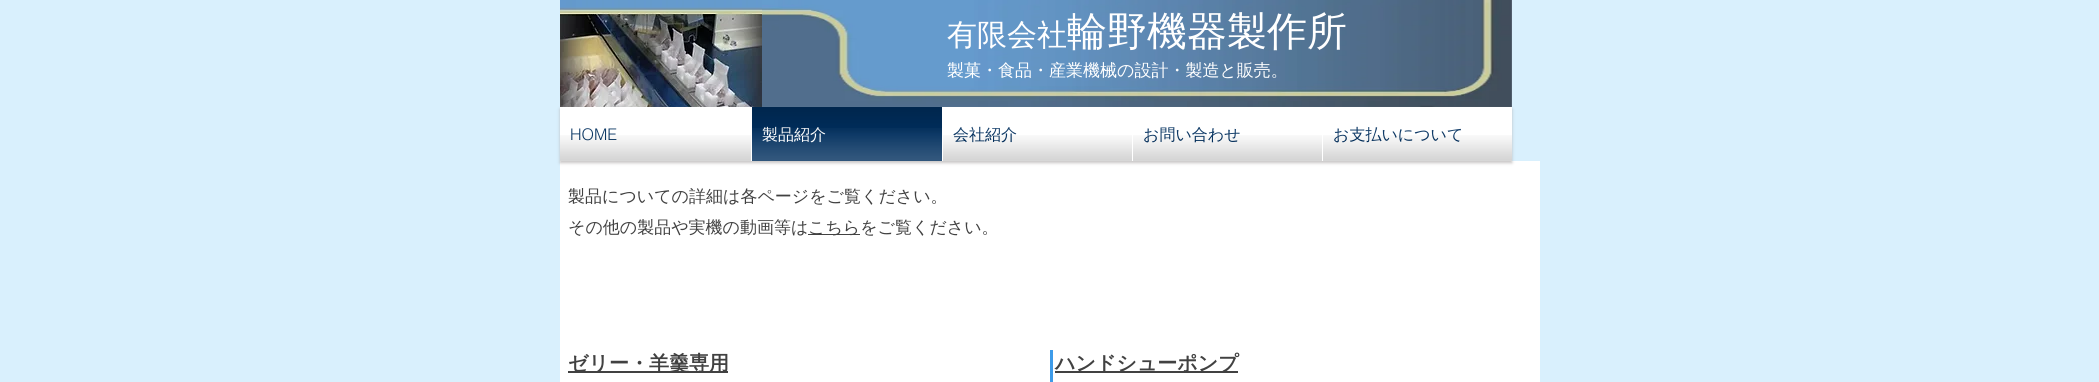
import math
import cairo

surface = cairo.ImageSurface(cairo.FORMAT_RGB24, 2099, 382)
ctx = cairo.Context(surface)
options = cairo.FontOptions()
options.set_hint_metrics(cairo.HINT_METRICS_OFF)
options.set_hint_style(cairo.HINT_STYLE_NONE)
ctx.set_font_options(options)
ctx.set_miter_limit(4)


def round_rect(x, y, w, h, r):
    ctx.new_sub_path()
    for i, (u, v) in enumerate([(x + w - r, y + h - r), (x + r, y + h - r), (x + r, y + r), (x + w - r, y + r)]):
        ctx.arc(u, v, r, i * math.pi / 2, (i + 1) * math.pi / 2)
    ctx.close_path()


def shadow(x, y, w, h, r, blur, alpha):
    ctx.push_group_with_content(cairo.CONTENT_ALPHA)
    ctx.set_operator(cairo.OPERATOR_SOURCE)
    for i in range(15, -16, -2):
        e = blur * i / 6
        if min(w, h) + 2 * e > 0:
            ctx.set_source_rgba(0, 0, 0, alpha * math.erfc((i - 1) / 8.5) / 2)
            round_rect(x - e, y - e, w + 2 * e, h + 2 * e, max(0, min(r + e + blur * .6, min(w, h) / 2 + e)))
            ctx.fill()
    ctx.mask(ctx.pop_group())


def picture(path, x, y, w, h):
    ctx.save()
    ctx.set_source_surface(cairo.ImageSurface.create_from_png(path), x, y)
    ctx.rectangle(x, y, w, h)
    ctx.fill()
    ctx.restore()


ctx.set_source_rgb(0.851, 0.941, 0.992)
ctx.paint()
picture("img1.png", 560, 0, 202, 107)
picture("img2.png", 762, 0, 750, 107)
ctx.select_font_face("WenQuanYi Zen Hei Medium")
ctx.set_font_size(30)
ctx.set_source_rgb(1, 1, 1)
ctx.move_to(947, 45)
ctx.show_text("有限会社")
ctx.set_font_size(40)
ctx.move_to(1067, 45)
ctx.show_text("輪野機器製作所")
ctx.set_font_size(17)
ctx.move_to(947, 76)
ctx.show_text("製菓・食品・産業機械の設計・製造と販売。")
ctx.rectangle(560, 161, 980, 221)
ctx.fill()
ctx.set_source_rgb(0.635, 0.62, 0.62)
shadow(560, 109, 952, 54, 0, 1.5, 0.6)
ctx.set_source_rgb(1, 1, 1)
ctx.rectangle(560, 107, 192, 54)
ctx.fill()
ctx.select_font_face("helvetica Light")
ctx.set_font_size(16)
ctx.set_source_rgb(0, 0.18, 0.365)
ctx.move_to(570, 140)
ctx.show_text("HOME")
picture("img3.png", 570, 128, 46, 12)
picture("img4.png", 560, 135, 191, 26)
ctx.rectangle(752, 107, 190, 54)
ctx.fill()
ctx.select_font_face("WenQuanYi Zen Hei Medium")
ctx.set_source_rgb(1, 1, 1)
ctx.move_to(762, 140)
ctx.show_text("製品紹介")
picture("img5.png", 752, 107, 190, 26)
picture("img6.png", 752, 128, 190, 33)
ctx.rectangle(942, 107, 570, 54)
ctx.fill()
ctx.set_source_rgb(0, 0.18, 0.365)
ctx.move_to(953, 140)
ctx.show_text("会社紹介")
picture("img7.png", 953, 127, 63, 13)
picture("img8.png", 943, 135, 189, 26)
ctx.move_to(1143, 140)
ctx.show_text("お問い合わせ")
picture("img9.png", 1144, 127, 95, 13)
picture("img10.png", 1133, 135, 189, 26)
ctx.move_to(1333, 140)
ctx.show_text("お支払いについて")
picture("img11.png", 1334, 127, 127, 13)
picture("img12.png", 1323, 135, 189, 26)
ctx.set_font_size(17)
ctx.set_source_rgb(0.255, 0.255, 0.255)
ctx.move_to(568, 202)
ctx.show_text("製品についての詳細は各ページをご覧ください。")
ctx.move_to(568, 233)
ctx.show_text("その他の製品や実機の動画等は")
ctx.rectangle(808, 234, 52, 1)
ctx.fill()
ctx.move_to(808, 233)
ctx.show_text("こちらをご覧ください。")
ctx.rectangle(568, 371, 160, 2)
ctx.fill()
ctx.select_font_face("WenQuanYi Zen Hei", cairo.FONT_SLANT_NORMAL, cairo.FONT_WEIGHT_BOLD)
ctx.set_font_size(20)
ctx.move_to(568, 370)
ctx.show_text("ゼリー・羊羹専用")
ctx.set_source_rgb(0.239, 0.608, 0.914)
ctx.rectangle(1050, 350, 3, 32)
ctx.fill()
ctx.set_source_rgb(0.255, 0.255, 0.255)
ctx.rectangle(1055, 371, 183, 2)
ctx.fill()
ctx.move_to(1055, 370)
ctx.show_text("ハンドシューポンプ")
surface.write_to_png("page.png")
